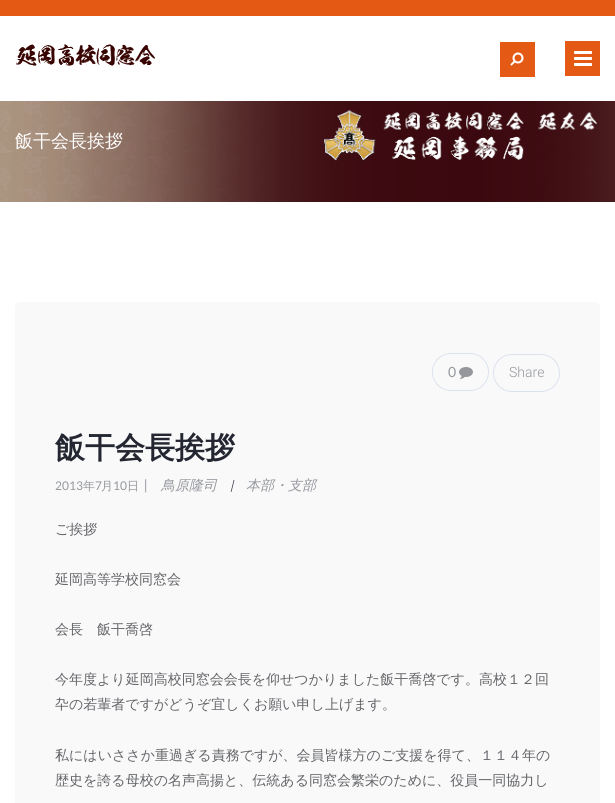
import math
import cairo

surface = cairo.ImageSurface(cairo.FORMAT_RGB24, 615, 803)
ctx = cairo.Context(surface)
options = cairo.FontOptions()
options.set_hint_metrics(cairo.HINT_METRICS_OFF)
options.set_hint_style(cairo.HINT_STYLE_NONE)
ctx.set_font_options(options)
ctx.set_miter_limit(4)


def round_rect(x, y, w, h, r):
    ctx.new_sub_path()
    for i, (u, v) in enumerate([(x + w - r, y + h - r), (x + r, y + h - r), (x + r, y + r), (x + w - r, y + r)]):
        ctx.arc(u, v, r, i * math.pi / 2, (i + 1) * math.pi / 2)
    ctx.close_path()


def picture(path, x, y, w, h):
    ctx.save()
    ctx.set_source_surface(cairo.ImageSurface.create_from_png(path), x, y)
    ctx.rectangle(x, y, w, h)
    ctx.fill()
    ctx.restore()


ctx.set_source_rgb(1, 1, 1)
ctx.paint()
ctx.set_source_rgb(0.894, 0.349, 0.078)
ctx.rectangle(0, 0, 615, 16)
ctx.fill()
picture("img1.png", 16, 44, 140, 22)
ctx.rectangle(500, 42, 35, 35)
ctx.fill()
picture("img2.png", 510, 52, 14, 14)
ctx.rectangle(565, 41, 35, 35)
ctx.fill()
picture("img3.png", 574, 51, 18, 15)
picture("img4.png", 0, 101, 615, 101)
ctx.select_font_face("WenQuanYi Zen Hei Medium")
ctx.set_font_size(18)
ctx.set_source_rgb(1, 1, 1)
ctx.move_to(15, 147)
ctx.show_text("飯干会長挨拶")
ctx.set_source_rgb(0.973, 0.973, 0.976)
round_rect(15, 302, 585, 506, 5)
ctx.fill()
round_rect(432.5, 353.5, 56, 37, 18.5)
ctx.set_source_rgb(0.863, 0.886, 0.929)
ctx.set_line_width(1)
ctx.stroke()
ctx.select_font_face("Lato")
ctx.set_font_size(14)
ctx.set_source_rgb(0.584, 0.592, 0.616)
ctx.move_to(448, 377)
ctx.show_text("0")
picture("img5.png", 459, 367, 14, 12)
round_rect(493.5, 354.5, 66, 37, 18.5)
ctx.set_source_rgb(0.863, 0.886, 0.929)
ctx.stroke()
ctx.select_font_face("Roboto Light")
ctx.set_source_rgb(0.584, 0.592, 0.616)
ctx.move_to(509, 377)
ctx.show_text("Share")
ctx.select_font_face("WenQuanYi Zen Hei", cairo.FONT_SLANT_NORMAL, cairo.FONT_WEIGHT_BOLD)
ctx.set_font_size(30)
ctx.set_source_rgb(0.141, 0.153, 0.196)
ctx.move_to(55, 458)
ctx.show_text("飯干会長挨拶")
ctx.select_font_face("Lato")
ctx.set_font_size(12)
ctx.set_source_rgb(0.584, 0.592, 0.616)
ctx.move_to(55, 490)
ctx.show_text("2013")
ctx.select_font_face("WenQuanYi Zen Hei Medium")
ctx.move_to(83, 490)
ctx.show_text("年")
ctx.select_font_face("Lato")
ctx.move_to(95, 490)
ctx.show_text("7")
ctx.select_font_face("WenQuanYi Zen Hei Medium")
ctx.move_to(101, 490)
ctx.show_text("月")
ctx.select_font_face("Lato")
ctx.move_to(113, 490)
ctx.show_text("10")
ctx.select_font_face("WenQuanYi Zen Hei Medium")
ctx.move_to(127, 490)
ctx.show_text("日")
ctx.select_font_face("Lato", cairo.FONT_SLANT_ITALIC)
ctx.set_font_size(14)
ctx.move_to(144, 490)
ctx.show_text("|")
ctx.select_font_face("WenQuanYi Zen Hei Medium", cairo.FONT_SLANT_ITALIC)
ctx.move_to(161, 490)
ctx.show_text("鳥原隆司")
ctx.select_font_face("Roboto Light", cairo.FONT_SLANT_ITALIC)
ctx.set_source_rgb(0.141, 0.153, 0.196)
ctx.move_to(230, 490)
ctx.show_text("|")
ctx.select_font_face("WenQuanYi Zen Hei Medium", cairo.FONT_SLANT_ITALIC)
ctx.set_source_rgb(0.584, 0.592, 0.616)
ctx.move_to(246, 490)
ctx.show_text("本部・支部")
ctx.select_font_face("WenQuanYi Zen Hei Medium")
ctx.set_source_rgb(0.392, 0.396, 0.412)
ctx.move_to(55, 534)
ctx.show_text("ご挨拶")
ctx.move_to(55, 584)
ctx.show_text("延岡高等学校同窓会")
ctx.move_to(55, 634)
ctx.show_text("会長　飯干喬啓")
ctx.move_to(55, 684)
ctx.show_text("今年度より延岡高校同窓会会長を仰せつかりました飯干喬啓です。高校１２回")
ctx.move_to(55, 709)
ctx.show_text("卆の若輩者ですがどうぞ宜しくお願い申し上げます。")
ctx.move_to(55, 760)
ctx.show_text("私にはいささか重過ぎる責務ですが、会員皆様方のご支援を得て、１１４年の")
ctx.move_to(55, 785)
ctx.show_text("歴史を誇る母校の名声高揚と、伝統ある同窓会繁栄のために、役員一同協力し")
surface.write_to_png("page.png")
